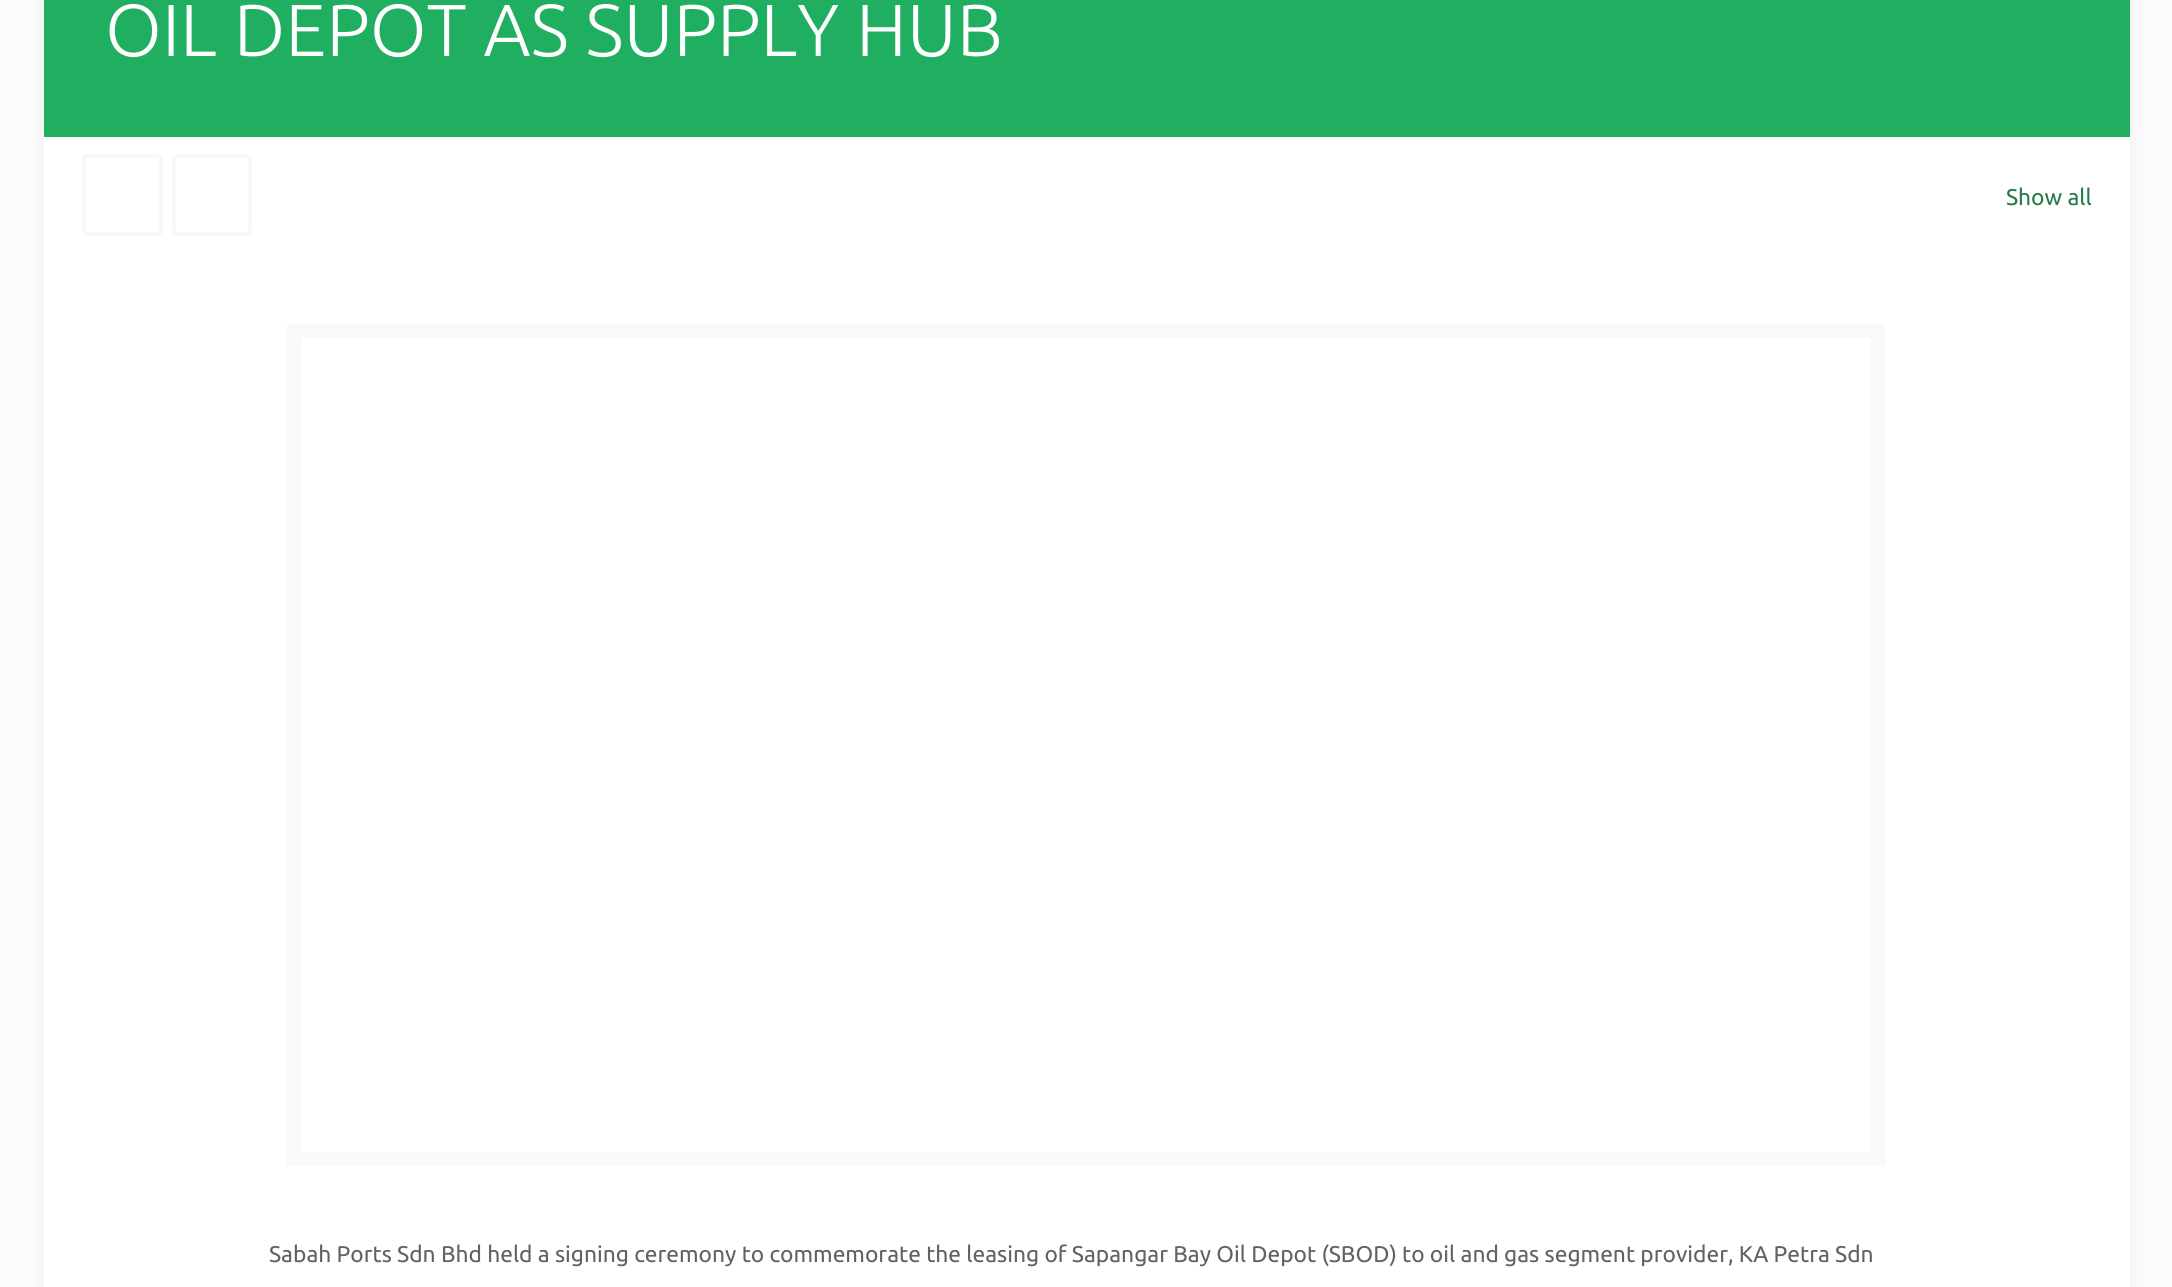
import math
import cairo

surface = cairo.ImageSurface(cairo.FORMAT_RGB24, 2172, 1287)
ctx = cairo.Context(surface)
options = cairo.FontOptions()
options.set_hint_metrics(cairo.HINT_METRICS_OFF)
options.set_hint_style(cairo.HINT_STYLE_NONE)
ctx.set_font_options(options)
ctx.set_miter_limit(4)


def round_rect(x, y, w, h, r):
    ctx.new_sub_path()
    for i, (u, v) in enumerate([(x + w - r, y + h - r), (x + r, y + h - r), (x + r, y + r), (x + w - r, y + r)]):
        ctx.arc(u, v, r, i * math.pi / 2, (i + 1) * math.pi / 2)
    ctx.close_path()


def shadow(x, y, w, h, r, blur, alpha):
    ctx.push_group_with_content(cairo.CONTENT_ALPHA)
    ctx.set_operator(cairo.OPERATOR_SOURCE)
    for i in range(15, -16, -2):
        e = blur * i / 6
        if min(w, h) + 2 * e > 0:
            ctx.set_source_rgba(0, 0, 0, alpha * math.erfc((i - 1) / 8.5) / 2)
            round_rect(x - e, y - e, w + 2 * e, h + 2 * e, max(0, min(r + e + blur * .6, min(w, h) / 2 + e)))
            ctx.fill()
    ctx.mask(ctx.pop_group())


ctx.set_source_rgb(0.988, 0.988, 0.988)
ctx.paint()
ctx.set_source_rgb(0, 0, 0)
shadow(44, -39, 2086, 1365, 0, 13, 0.06)
ctx.set_source_rgb(1, 1, 1)
ctx.rectangle(44, 137, 2086, 1150)
ctx.fill()
ctx.set_source_rgb(0.125, 0.686, 0.376)
ctx.rectangle(44, 0, 2086, 137)
ctx.fill()
ctx.select_font_face("Ubuntu Light")
ctx.set_font_size(73.5)
ctx.set_source_rgb(1, 1, 1)
ctx.move_to(105, 56)
ctx.show_text("OIL DEPOT AS SUPPLY HUB")
round_rect(84, 156, 77, 78, 3)
ctx.set_source_rgb(0.969, 0.969, 0.969)
ctx.set_line_width(4)
ctx.stroke()
round_rect(174, 156, 76, 78, 3)
ctx.stroke()
ctx.select_font_face("Ubuntu")
ctx.set_font_size(22.75)
ctx.set_source_rgb(0.145, 0.486, 0.278)
ctx.move_to(2006, 205)
ctx.show_text("Show all")
ctx.rectangle(294, 331, 1584, 828)
ctx.set_source_rgb(0.973, 0.973, 0.973)
ctx.set_line_width(14)
ctx.stroke()
ctx.set_source_rgb(0.384, 0.384, 0.384)
ctx.move_to(269, 1262)
ctx.show_text("Sabah Ports Sdn Bhd held a signing ceremony to commemorate the leasing of Sapangar Bay Oil Depot (SBOD) to oil and gas segment provider, KA Petra Sdn")
surface.write_to_png("page.png")
